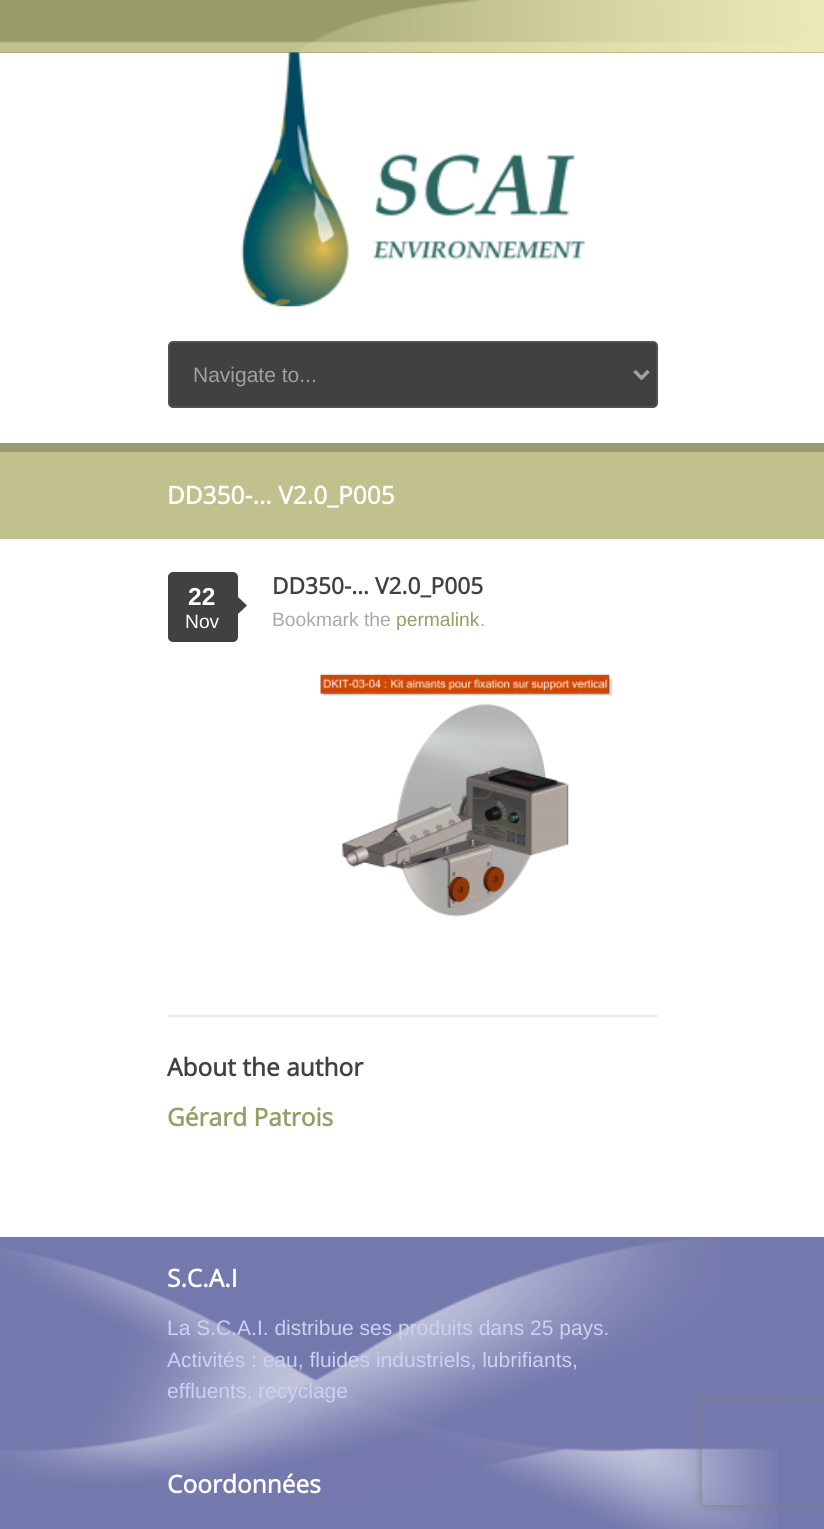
import math
import cairo

surface = cairo.ImageSurface(cairo.FORMAT_RGB24, 824, 1529)
ctx = cairo.Context(surface)
options = cairo.FontOptions()
options.set_hint_metrics(cairo.HINT_METRICS_OFF)
options.set_hint_style(cairo.HINT_STYLE_NONE)
ctx.set_font_options(options)
ctx.set_miter_limit(4)


def round_rect(x, y, w, h, r):
    ctx.new_sub_path()
    for i, (u, v) in enumerate([(x + w - r, y + h - r), (x + r, y + h - r), (x + r, y + r), (x + w - r, y + r)]):
        ctx.arc(u, v, r, i * math.pi / 2, (i + 1) * math.pi / 2)
    ctx.close_path()


def shadow(x, y, w, h, r, blur, alpha):
    ctx.push_group_with_content(cairo.CONTENT_ALPHA)
    ctx.set_operator(cairo.OPERATOR_SOURCE)
    for i in range(15, -16, -2):
        e = blur * i / 6
        if min(w, h) + 2 * e > 0:
            ctx.set_source_rgba(0, 0, 0, alpha * math.erfc((i - 1) / 8.5) / 2)
            round_rect(x - e, y - e, w + 2 * e, h + 2 * e, max(0, min(r + e + blur * .6, min(w, h) / 2 + e)))
            ctx.fill()
    ctx.mask(ctx.pop_group())


def picture(path, x, y, w, h):
    ctx.save()
    ctx.set_source_surface(cairo.ImageSurface.create_from_png(path), x, y)
    ctx.rectangle(x, y, w, h)
    ctx.fill()
    ctx.restore()


ctx.set_source_rgb(1, 1, 1)
ctx.paint()
ctx.set_source_rgb(0.6, 0.612, 0.404)
ctx.rectangle(0, 0, 824, 53)
ctx.fill()
picture("img1.png", 0, 0, 824, 53)
picture("img2.png", 241, 52, 344, 255)
ctx.set_source_rgb(0.255, 0.255, 0.255)
round_rect(169, 342, 488, 65, 4)
ctx.fill_preserve()
ctx.set_source_rgb(0.318, 0.318, 0.318)
ctx.stroke()
ctx.new_path()
ctx.move_to(634.5, 371)
ctx.line_to(641.5, 378)
ctx.line_to(648.5, 371)
ctx.set_source_rgb(0.631, 0.627, 0.627)
ctx.set_line_width(3.5)
ctx.stroke()
ctx.select_font_face("Liberation Sans")
ctx.set_font_size(21)
ctx.move_to(193, 382)
ctx.show_text("Navigate to...")
ctx.set_source_rgb(0.753, 0.757, 0.553)
ctx.rectangle(0, 452, 824, 87)
ctx.fill()
ctx.set_source_rgb(0.604, 0.604, 0.443)
ctx.rectangle(0, 443, 824, 9)
ctx.fill()
ctx.select_font_face("Open Sans", cairo.FONT_SLANT_NORMAL, cairo.FONT_WEIGHT_BOLD)
ctx.set_font_size(24.5)
ctx.set_source_rgb(1, 1, 1)
ctx.move_to(167, 504)
ctx.show_text("DD350-... V2.0_P005")
ctx.set_source_rgb(0.255, 0.255, 0.255)
round_rect(168, 572, 70, 70, 5)
ctx.fill()
ctx.select_font_face("Liberation Sans", cairo.FONT_SLANT_NORMAL, cairo.FONT_WEIGHT_BOLD)
ctx.set_source_rgb(1, 1, 1)
ctx.move_to(188, 605)
ctx.show_text("22")
ctx.set_source_rgb(0.255, 0.255, 0.255)
ctx.new_path()
ctx.move_to(238, 614)
ctx.line_to(238, 597)
ctx.line_to(247, 605.5)
ctx.close_path()
ctx.fill()
ctx.select_font_face("Liberation Sans")
ctx.set_font_size(19.25)
ctx.set_source_rgb(1, 1, 1)
ctx.move_to(185, 628)
ctx.show_text("Nov")
ctx.select_font_face("Open Sans", cairo.FONT_SLANT_NORMAL, cairo.FONT_WEIGHT_BOLD)
ctx.set_font_size(22.75)
ctx.set_source_rgb(0.255, 0.255, 0.255)
ctx.move_to(272, 594)
ctx.show_text("DD350-… V2.0_P005")
ctx.select_font_face("Liberation Sans")
ctx.set_font_size(19.25)
ctx.set_source_rgb(0.663, 0.663, 0.663)
ctx.move_to(272, 626)
ctx.show_text("Bookmark the")
ctx.set_source_rgb(0.6, 0.612, 0.404)
ctx.move_to(396, 626)
ctx.show_text("permalink")
ctx.set_source_rgb(0.663, 0.663, 0.663)
ctx.move_to(480, 626)
ctx.show_text(".")
picture("img3.png", 320, 674, 293, 243)
ctx.set_source_rgb(0.925, 0.925, 0.925)
ctx.rectangle(168, 1015, 490, 2)
ctx.fill()
ctx.select_font_face("Open Sans", cairo.FONT_SLANT_NORMAL, cairo.FONT_WEIGHT_BOLD)
ctx.set_font_size(24.5)
ctx.set_source_rgb(0.255, 0.255, 0.255)
ctx.move_to(167, 1076)
ctx.show_text("About the author")
ctx.set_source_rgb(0.6, 0.612, 0.404)
ctx.move_to(167, 1126)
ctx.show_text("Gérard Patrois")
ctx.set_source_rgb(0.451, 0.475, 0.678)
ctx.rectangle(0, 1237, 824, 292)
ctx.fill()
picture("img4.png", 0, 1238, 778, 291)
ctx.set_source_rgb(1, 1, 1)
ctx.move_to(167, 1287)
ctx.show_text("S.C.A.I")
ctx.select_font_face("Liberation Sans")
ctx.set_font_size(21)
ctx.set_source_rgb(0.8, 0.816, 0.949)
ctx.move_to(167, 1335)
ctx.show_text("La S.C.A.I. distribue ses produits dans 25 pays.")
ctx.move_to(167, 1367)
ctx.show_text("Activités : eau, fluides industriels, lubrifiants,")
ctx.move_to(167, 1398)
ctx.show_text("effluents, recyclage")
ctx.select_font_face("Open Sans", cairo.FONT_SLANT_NORMAL, cairo.FONT_WEIGHT_BOLD)
ctx.set_font_size(24.5)
ctx.set_source_rgb(1, 1, 1)
ctx.move_to(167, 1493)
ctx.show_text("Coordonnées")
ctx.save()
ctx.set_fill_rule(cairo.FILL_RULE_EVEN_ODD)
ctx.new_path()
ctx.move_to(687, 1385)
ctx.line_to(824, 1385)
ctx.line_to(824, 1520)
ctx.line_to(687, 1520)
ctx.close_path()
ctx.move_to(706, 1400)
ctx.line_to(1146, 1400)
ctx.curve_to(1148, 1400, 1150, 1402, 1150, 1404)
ctx.line_to(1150, 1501)
ctx.curve_to(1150, 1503, 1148, 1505, 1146, 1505)
ctx.line_to(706, 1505)
ctx.curve_to(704, 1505, 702, 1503, 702, 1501)
ctx.line_to(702, 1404)
ctx.curve_to(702, 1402, 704, 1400, 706, 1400)
ctx.close_path()
ctx.clip()
ctx.set_source_rgb(0.502, 0.502, 0.502)
shadow(702, 1400, 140, 105, 4, 4.5, 1)
ctx.restore()
surface.write_to_png("page.png")
